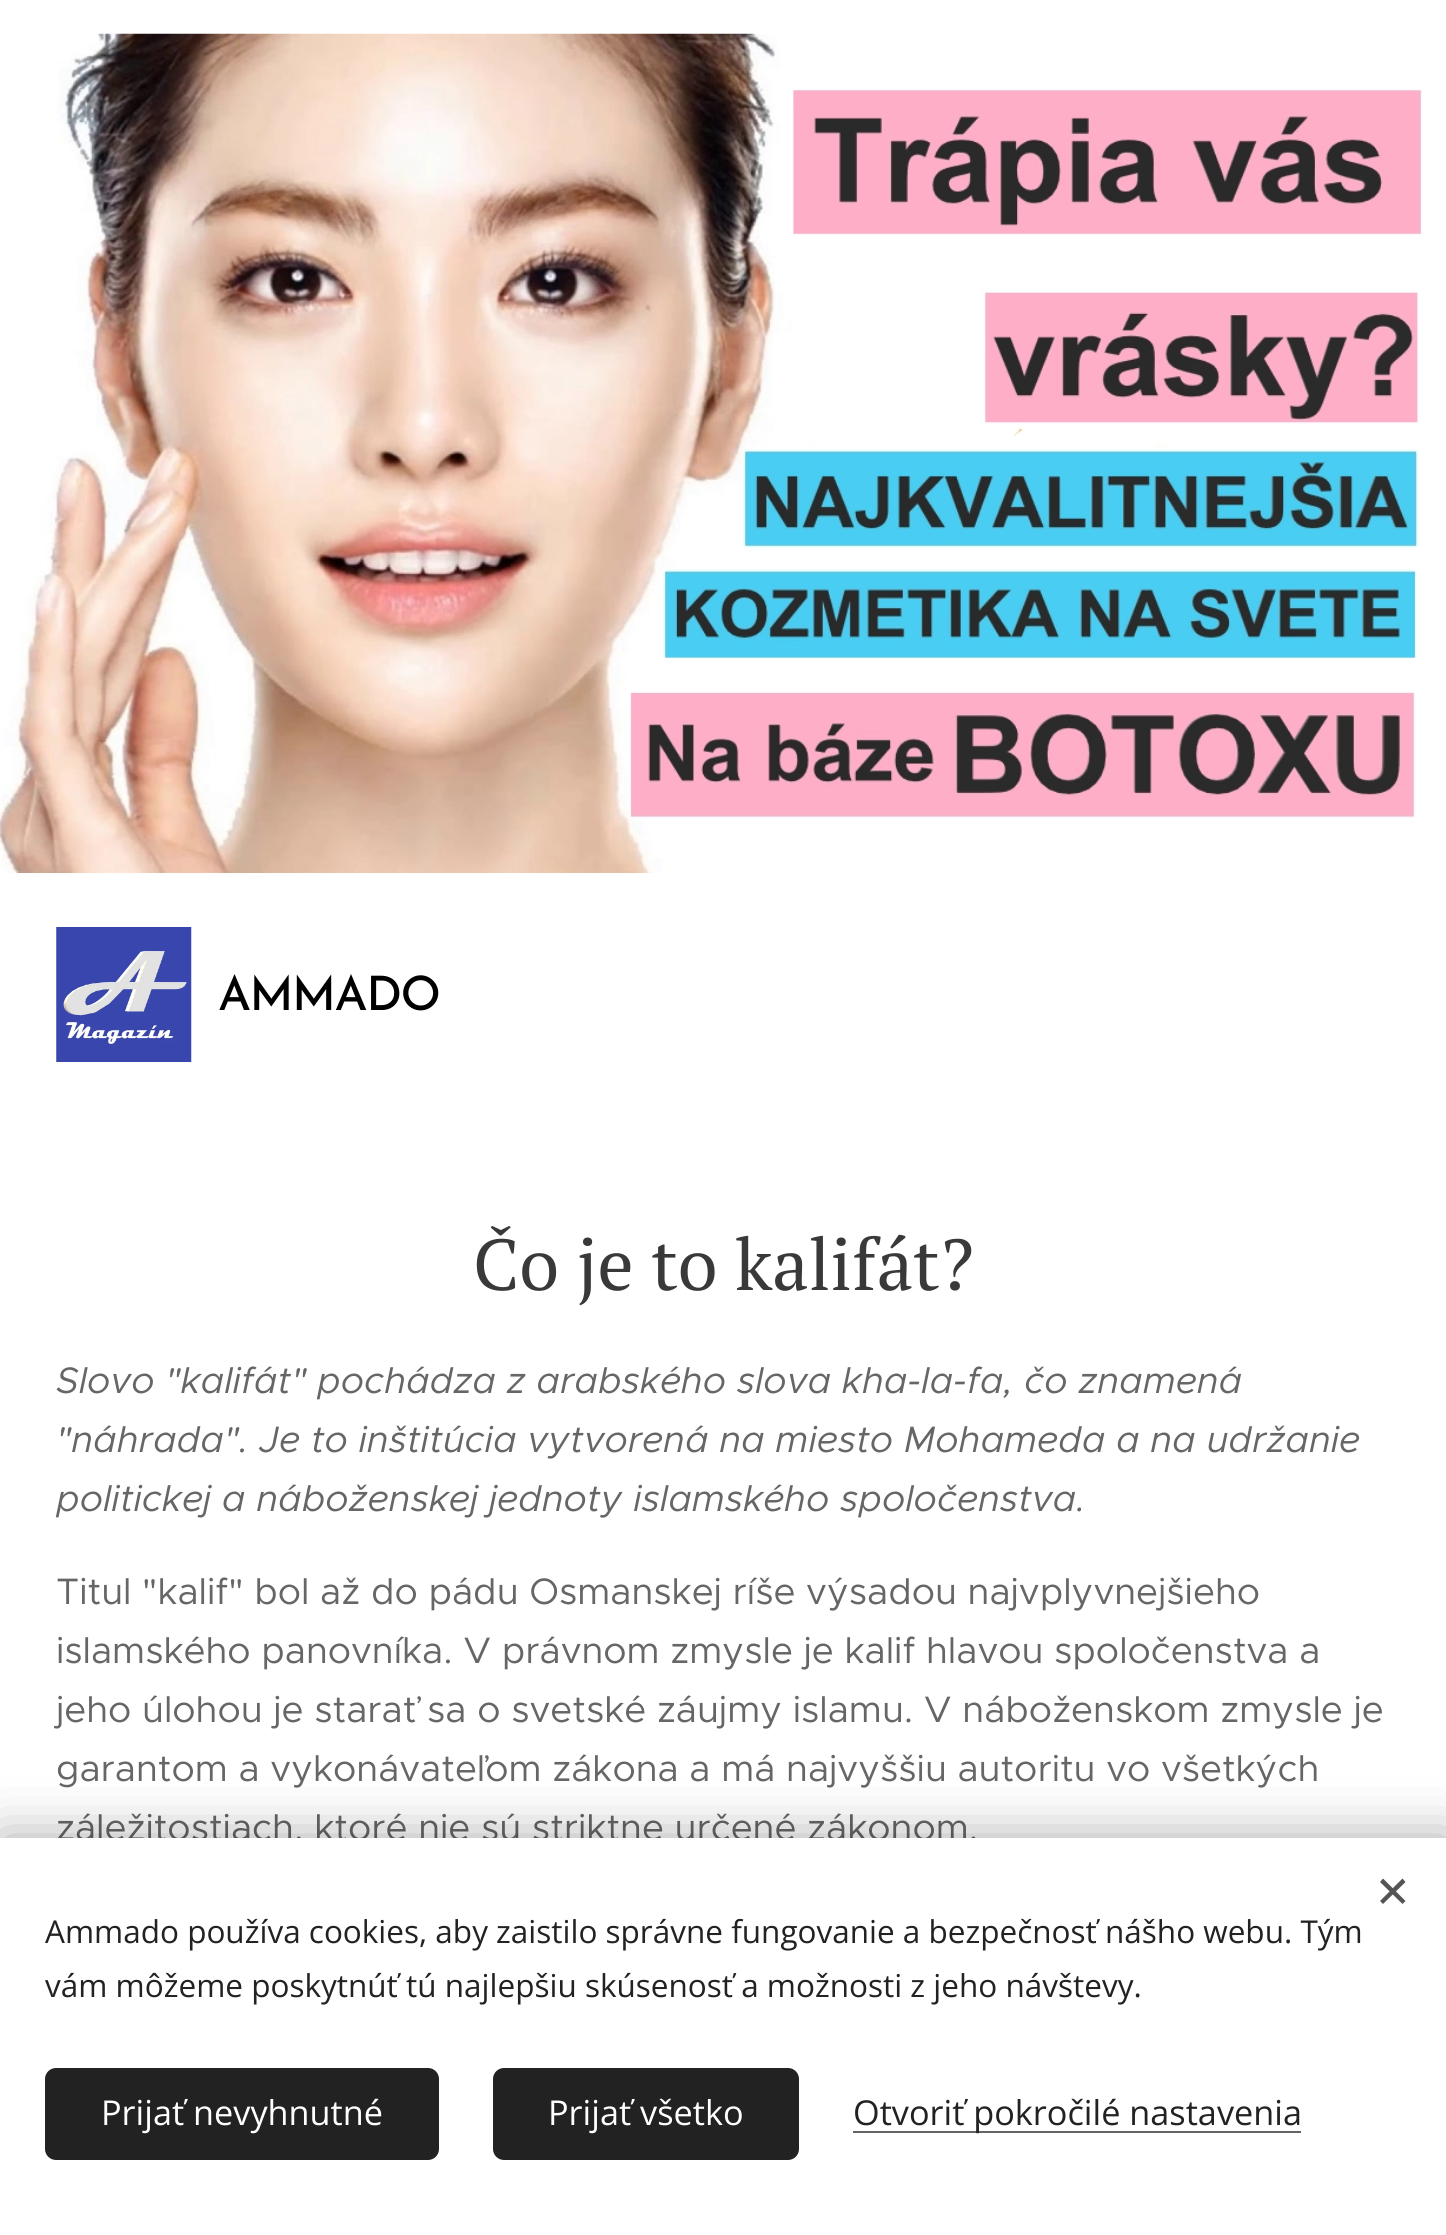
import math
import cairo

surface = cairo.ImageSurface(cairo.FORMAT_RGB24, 1446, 2235)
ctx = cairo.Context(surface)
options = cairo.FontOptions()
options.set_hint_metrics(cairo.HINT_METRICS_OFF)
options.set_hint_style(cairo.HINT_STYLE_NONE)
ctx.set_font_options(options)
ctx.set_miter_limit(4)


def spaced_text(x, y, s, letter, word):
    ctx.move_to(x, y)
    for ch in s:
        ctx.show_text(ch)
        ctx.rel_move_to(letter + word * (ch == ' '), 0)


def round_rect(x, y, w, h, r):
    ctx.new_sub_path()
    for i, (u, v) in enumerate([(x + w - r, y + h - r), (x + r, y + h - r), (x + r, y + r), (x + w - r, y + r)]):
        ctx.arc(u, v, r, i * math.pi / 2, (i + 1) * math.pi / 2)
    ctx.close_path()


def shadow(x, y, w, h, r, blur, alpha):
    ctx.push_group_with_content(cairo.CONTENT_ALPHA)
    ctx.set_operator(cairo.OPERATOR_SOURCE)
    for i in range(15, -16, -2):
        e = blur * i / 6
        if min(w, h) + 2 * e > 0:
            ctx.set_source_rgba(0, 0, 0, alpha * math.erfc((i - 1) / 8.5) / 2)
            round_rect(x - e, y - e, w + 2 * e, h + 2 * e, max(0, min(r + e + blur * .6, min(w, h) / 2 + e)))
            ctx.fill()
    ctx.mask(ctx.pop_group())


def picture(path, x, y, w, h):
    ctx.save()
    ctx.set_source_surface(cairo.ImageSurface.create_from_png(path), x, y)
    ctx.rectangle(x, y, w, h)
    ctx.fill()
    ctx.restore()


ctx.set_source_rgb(1, 1, 1)
ctx.paint()
picture("img1.png", 0, 33, 1422, 840)
picture("img2.png", 56, 927, 136, 135)
ctx.select_font_face("Josefin Sans Medium")
ctx.set_font_size(47.25)
ctx.set_source_rgb(0, 0, 0)
spaced_text(218, 1010, "AMMADO", -1.5, 0)
ctx.select_font_face("PT Serif")
ctx.set_font_size(72)
ctx.set_source_rgb(0.224, 0.224, 0.224)
ctx.move_to(473, 1290)
ctx.show_text("Čo je to kalifát?")
ctx.select_font_face("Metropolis", cairo.FONT_SLANT_ITALIC)
ctx.set_font_size(36.9)
ctx.set_source_rgb(0.4, 0.4, 0.4)
ctx.move_to(56, 1393)
ctx.show_text("Slovo \"kalifát\" pochádza z arabského slova kha-la-fa, čo znamená")
ctx.move_to(56, 1452)
ctx.show_text("\"náhrada\". Je to inštitúcia vytvorená na miesto Mohameda a na udržanie")
ctx.move_to(56, 1511)
ctx.show_text("politickej a náboženskej jednoty islamského spoločenstva.")
ctx.select_font_face("Metropolis")
ctx.move_to(56, 1604)
ctx.show_text("Titul \"kalif\" bol až do pádu Osmanskej ríše výsadou najvplyvnejšieho")
ctx.move_to(56, 1663)
ctx.show_text("islamského panovníka. V právnom zmysle je kalif hlavou spoločenstva a")
ctx.move_to(56, 1722)
ctx.show_text("jeho úlohou je starať sa o svetské záujmy islamu. V náboženskom zmysle je")
ctx.move_to(56, 1781)
ctx.show_text("garantom a vykonávateľom zákona a má najvyššiu autoritu vo všetkých")
ctx.move_to(56, 1840)
ctx.show_text("záležitostiach, ktoré nie sú striktne určené zákonom.")
ctx.set_source_rgb(0, 0, 0)
shadow(0, 1838, 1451, 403, 0, 28, 0.33)
ctx.set_source_rgb(1, 1, 1)
ctx.rectangle(0, 1838, 1446, 397)
ctx.fill()
ctx.set_source_rgb(0.333, 0.333, 0.333)
ctx.new_path()
ctx.move_to(1380, 1901)
ctx.line_to(1402.5, 1878.5)
ctx.line_to(1405.5, 1882)
ctx.line_to(1383, 1904)
ctx.close_path()
ctx.fill()
ctx.new_path()
ctx.move_to(1383, 1878.5)
ctx.line_to(1405.5, 1901)
ctx.line_to(1402.5, 1904)
ctx.line_to(1380, 1882)
ctx.close_path()
ctx.fill()
ctx.select_font_face("Open Sans")
ctx.set_font_size(31.5)
ctx.set_source_rgb(0.133, 0.133, 0.133)
ctx.move_to(45, 1943)
ctx.show_text("Ammado používa cookies, aby zaistilo správne fungovanie a bezpečnosť nášho webu. Tým")
ctx.move_to(45, 1997)
ctx.show_text("vám môžeme poskytnúť tú najlepšiu skúsenosť a možnosti z jeho návštevy.")
round_rect(45, 2068, 394, 92, 11)
ctx.fill()
ctx.set_font_size(34.25)
ctx.set_source_rgb(1, 1, 1)
ctx.move_to(101, 2125)
ctx.show_text("Prijať nevyhnutné")
ctx.set_source_rgb(0.133, 0.133, 0.133)
round_rect(493, 2068, 306, 92, 11)
ctx.fill()
ctx.set_source_rgb(1, 1, 1)
ctx.move_to(548, 2125)
ctx.show_text("Prijať všetko")
ctx.set_source_rgb(0.392, 0.392, 0.392)
ctx.rectangle(853, 2131, 448, 2)
ctx.fill()
ctx.set_source_rgb(0.133, 0.133, 0.133)
ctx.move_to(853, 2125)
ctx.show_text("Otvoriť pokročilé nastavenia")
surface.write_to_png("page.png")
